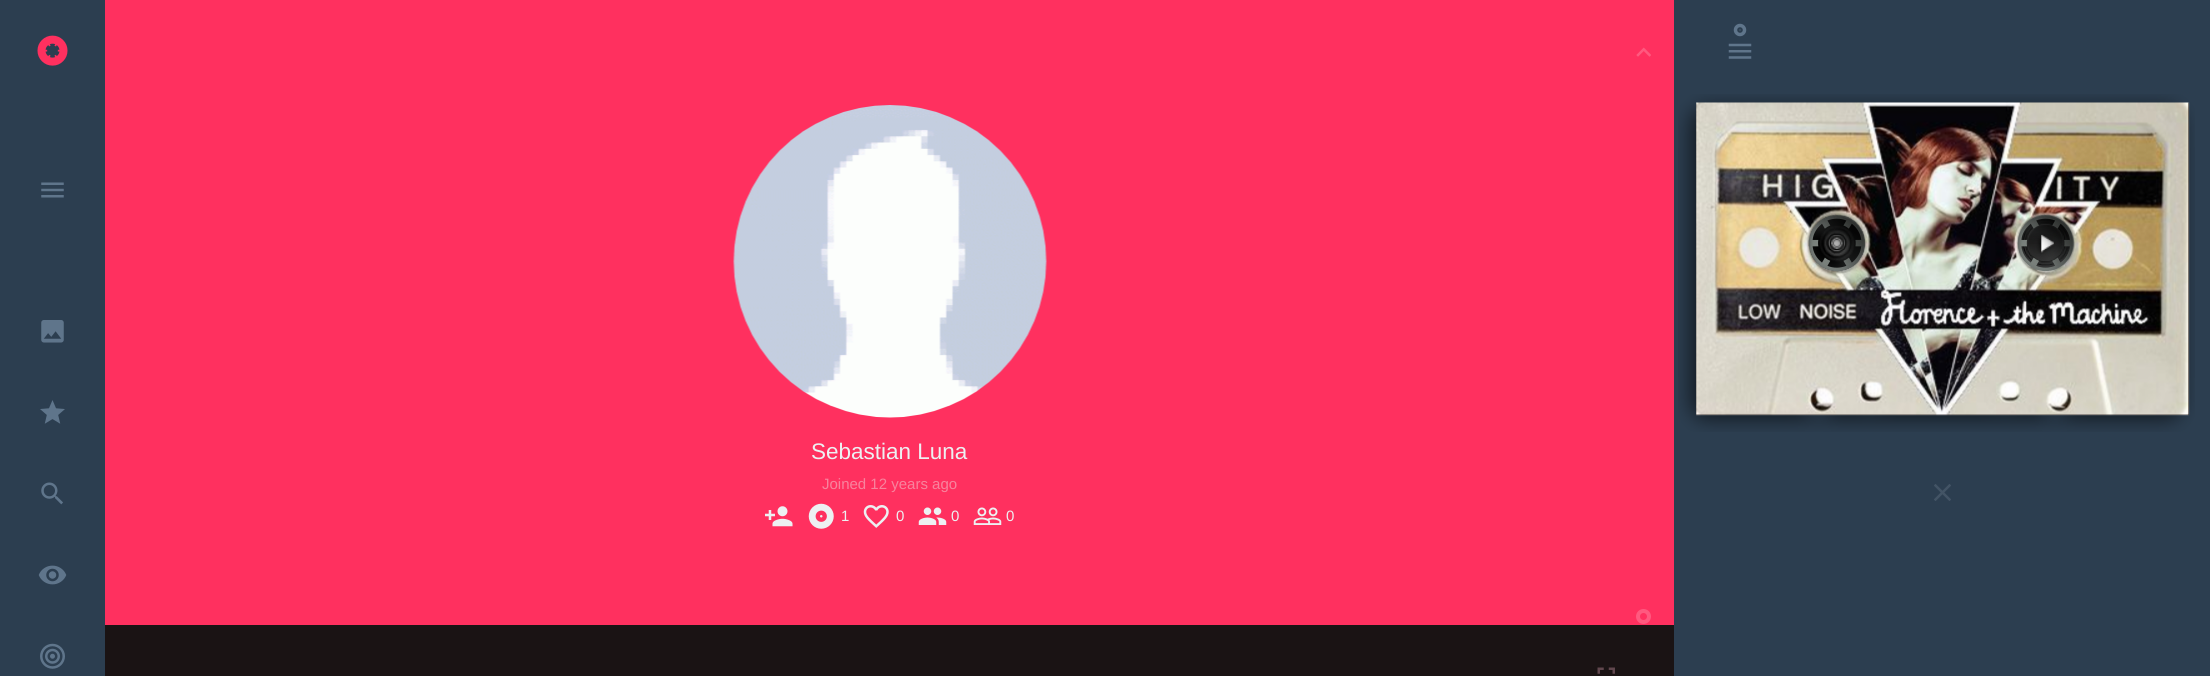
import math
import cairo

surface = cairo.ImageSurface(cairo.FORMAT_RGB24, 2210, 676)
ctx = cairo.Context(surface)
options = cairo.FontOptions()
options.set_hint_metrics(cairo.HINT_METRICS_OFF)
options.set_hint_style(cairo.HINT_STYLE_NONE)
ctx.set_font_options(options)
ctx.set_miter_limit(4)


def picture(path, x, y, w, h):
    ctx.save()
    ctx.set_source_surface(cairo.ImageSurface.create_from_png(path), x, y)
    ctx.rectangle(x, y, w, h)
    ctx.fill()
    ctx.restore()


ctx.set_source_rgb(0.173, 0.243, 0.314)
ctx.paint()
picture("img1.png", 37, 35, 31, 31)
picture("img2.png", 41, 182, 23, 16)
picture("img3.png", 41, 320, 23, 23)
picture("img4.png", 40, 400, 25, 24)
picture("img5.png", 41, 482, 22, 23)
picture("img6.png", 38, 565, 29, 20)
picture("img7.png", 40, 643, 25, 26)
ctx.set_source_rgb(1, 0.188, 0.373)
ctx.rectangle(105, 0, 1569, 625)
ctx.fill()
picture("img8.png", 1636, 47, 15, 10)
picture("img9.png", 733, 105, 314, 313)
ctx.select_font_face("Liberation Sans")
ctx.set_font_size(22.5)
ctx.set_source_rgb(0.929, 0.941, 0.949)
ctx.move_to(811, 459)
ctx.show_text("Sebastian Luna")
ctx.set_font_size(15)
ctx.set_source_rgb(0.969, 0.514, 0.616)
ctx.move_to(822, 489)
ctx.show_text("Joined 12 years ago")
picture("img10.png", 765, 506, 28, 21)
picture("img11.png", 808, 503, 26, 26)
ctx.set_source_rgb(0.929, 0.941, 0.949)
ctx.move_to(841, 521)
ctx.show_text("1")
picture("img12.png", 863, 505, 26, 23)
ctx.move_to(896, 521)
ctx.show_text("0")
picture("img13.png", 918, 507, 29, 18)
ctx.move_to(951, 521)
ctx.show_text("0")
picture("img14.png", 973, 507, 29, 18)
ctx.move_to(1006, 521)
ctx.show_text("0")
ctx.set_source_rgb(0.102, 0.075, 0.082)
ctx.rectangle(105, 625, 1569, 51)
ctx.fill()
picture("img15.png", 1597, 667, 18, 7)
ctx.arc(1643.5, 616.5, 5.5, 0, 2 * math.pi)
ctx.set_source_rgb(1, 0.349, 0.498)
ctx.set_line_width(4)
ctx.stroke()
picture("img16.png", 1733, 23, 14, 14)
picture("img17.png", 1728, 43, 24, 16)
picture("img18.png", 1678, 94, 517, 338)
ctx.set_source_rgb(0.102, 0.075, 0.082)
ctx.rectangle(1696, 103, 493, 312)
ctx.fill()
picture("img19.png", 1696, 102, 494, 314)
picture("img22.png", 1808, 216, 58, 56)
picture("img21.png", 1809, 215, 56, 56)
picture("img20.png", 1807, 213, 60, 60)
picture("img25.png", 2018, 216, 52, 52)
picture("img24.png", 2017, 215, 57, 57)
picture("img23.png", 2016, 213, 59, 60)
picture("img26.png", 1934, 484, 17, 17)
surface.write_to_png("page.png")
